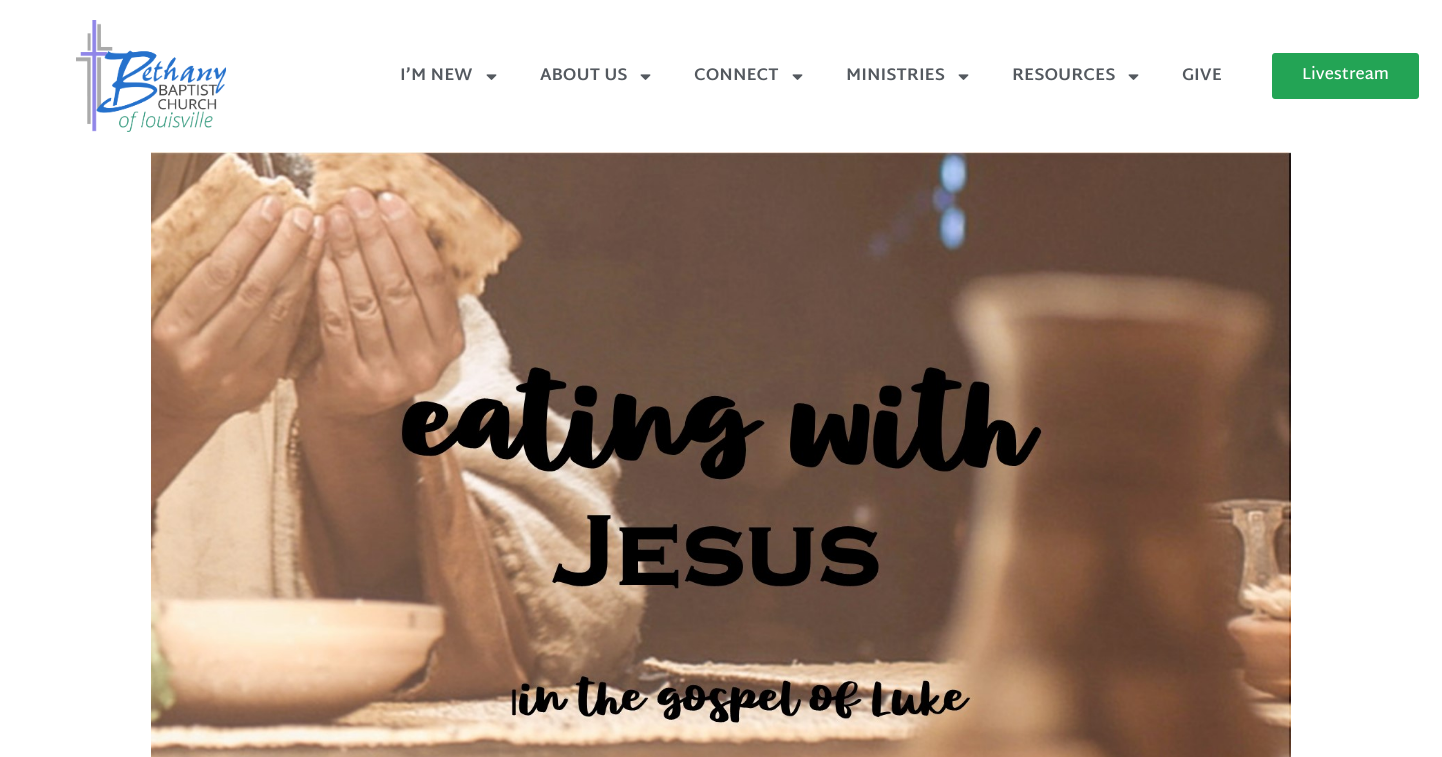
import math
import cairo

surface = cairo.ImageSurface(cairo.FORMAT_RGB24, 1442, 757)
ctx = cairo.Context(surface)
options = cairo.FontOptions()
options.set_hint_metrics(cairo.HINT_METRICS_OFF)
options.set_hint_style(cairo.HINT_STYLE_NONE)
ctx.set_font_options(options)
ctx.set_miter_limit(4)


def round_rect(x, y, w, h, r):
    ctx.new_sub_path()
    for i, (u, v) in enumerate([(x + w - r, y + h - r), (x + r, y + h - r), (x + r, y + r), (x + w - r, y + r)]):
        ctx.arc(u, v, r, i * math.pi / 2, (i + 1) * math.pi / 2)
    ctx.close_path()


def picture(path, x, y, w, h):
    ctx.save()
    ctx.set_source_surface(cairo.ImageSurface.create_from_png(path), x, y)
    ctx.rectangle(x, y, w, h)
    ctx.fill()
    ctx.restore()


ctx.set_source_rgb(1, 1, 1)
ctx.paint()
picture("img1.png", 76, 20, 150, 112)
ctx.select_font_face("Martel Sans", cairo.FONT_SLANT_NORMAL, cairo.FONT_WEIGHT_BOLD)
ctx.set_font_size(17)
ctx.set_source_rgb(0.329, 0.349, 0.373)
ctx.move_to(400, 80)
ctx.show_text("I’M NEW")
picture("img2.png", 486, 74, 11, 6)
ctx.move_to(540, 80)
ctx.show_text("ABOUT US")
picture("img2.png", 640, 74, 11, 6)
ctx.move_to(694, 80)
ctx.show_text("CONNECT")
picture("img2.png", 792, 74, 11, 6)
ctx.move_to(846, 80)
ctx.show_text("MINISTRIES")
picture("img2.png", 958, 74, 11, 6)
ctx.move_to(1012, 80)
ctx.show_text("RESOURCES")
picture("img2.png", 1128, 74, 11, 6)
ctx.move_to(1182, 80)
ctx.show_text("GIVE")
ctx.set_source_rgb(0.137, 0.643, 0.333)
round_rect(1272, 53, 147, 46, 3)
ctx.fill()
ctx.select_font_face("Martel Sans SemiBold")
ctx.set_font_size(16)
ctx.set_source_rgb(1, 1, 1)
ctx.move_to(1302, 79)
ctx.show_text("Livestream")
picture("img3.png", 151, 152, 1140, 605)
surface.write_to_png("page.png")
